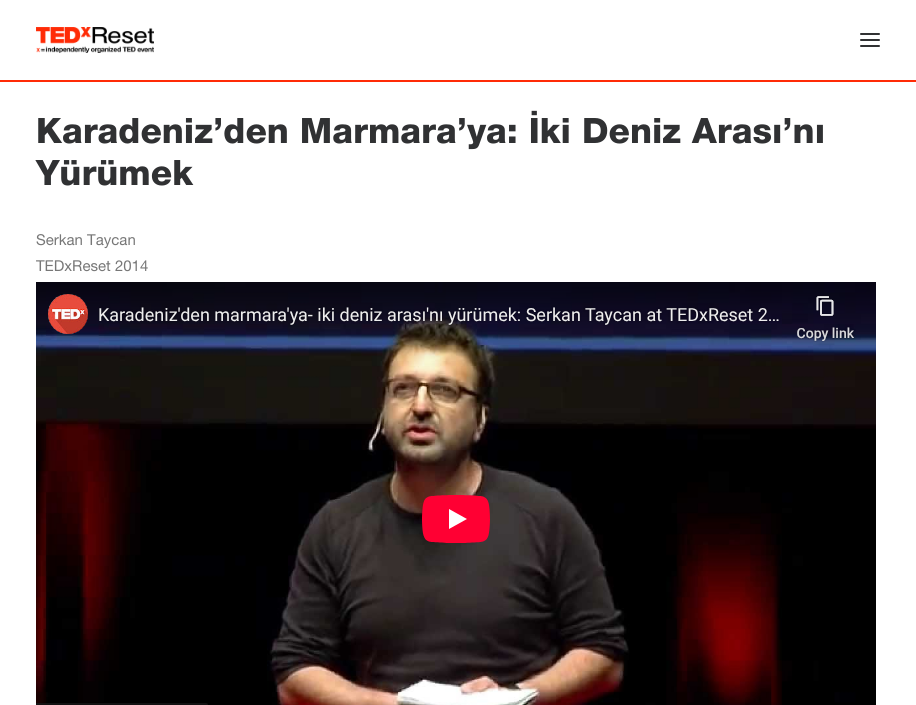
import math
import cairo

surface = cairo.ImageSurface(cairo.FORMAT_RGB24, 916, 705)
ctx = cairo.Context(surface)
options = cairo.FontOptions()
options.set_hint_metrics(cairo.HINT_METRICS_OFF)
options.set_hint_style(cairo.HINT_STYLE_NONE)
ctx.set_font_options(options)
ctx.set_miter_limit(4)


def round_rect(x, y, w, h, r):
    ctx.new_sub_path()
    for i, (u, v) in enumerate([(x + w - r, y + h - r), (x + r, y + h - r), (x + r, y + r), (x + w - r, y + r)]):
        ctx.arc(u, v, r, i * math.pi / 2, (i + 1) * math.pi / 2)
    ctx.close_path()


def picture(path, x, y, w, h):
    ctx.save()
    ctx.set_source_surface(cairo.ImageSurface.create_from_png(path), x, y)
    ctx.rectangle(x, y, w, h)
    ctx.fill()
    ctx.restore()


ctx.set_source_rgb(1, 1, 1)
ctx.paint()
ctx.set_source_rgb(1, 0.169, 0.024)
ctx.rectangle(0, 80, 916, 2)
ctx.fill()
picture("img1.png", 36, 27, 118, 26)
ctx.set_source_rgb(0.188, 0.192, 0.2)
round_rect(860, 39, 20, 2, 1)
ctx.fill()
round_rect(860, 33, 20, 2, 1)
ctx.fill()
round_rect(860, 45, 20, 2, 1)
ctx.fill()
ctx.select_font_face("Helvetica Neue", cairo.FONT_SLANT_NORMAL, cairo.FONT_WEIGHT_BOLD)
ctx.set_font_size(35)
ctx.move_to(36, 143)
ctx.show_text("Karadeniz’den Marmara’ya: İki Deniz Arası’nı")
ctx.move_to(36, 185)
ctx.show_text("Yürümek")
ctx.select_font_face("Helvetica Neue")
ctx.set_font_size(15)
ctx.set_source_rgb(0.467, 0.467, 0.467)
ctx.move_to(36, 245)
ctx.show_text("Serkan Taycan")
ctx.move_to(36, 271)
ctx.show_text("TEDxReset 2014")
picture("img2.png", 36, 282, 840, 423)
surface.write_to_png("page.png")
